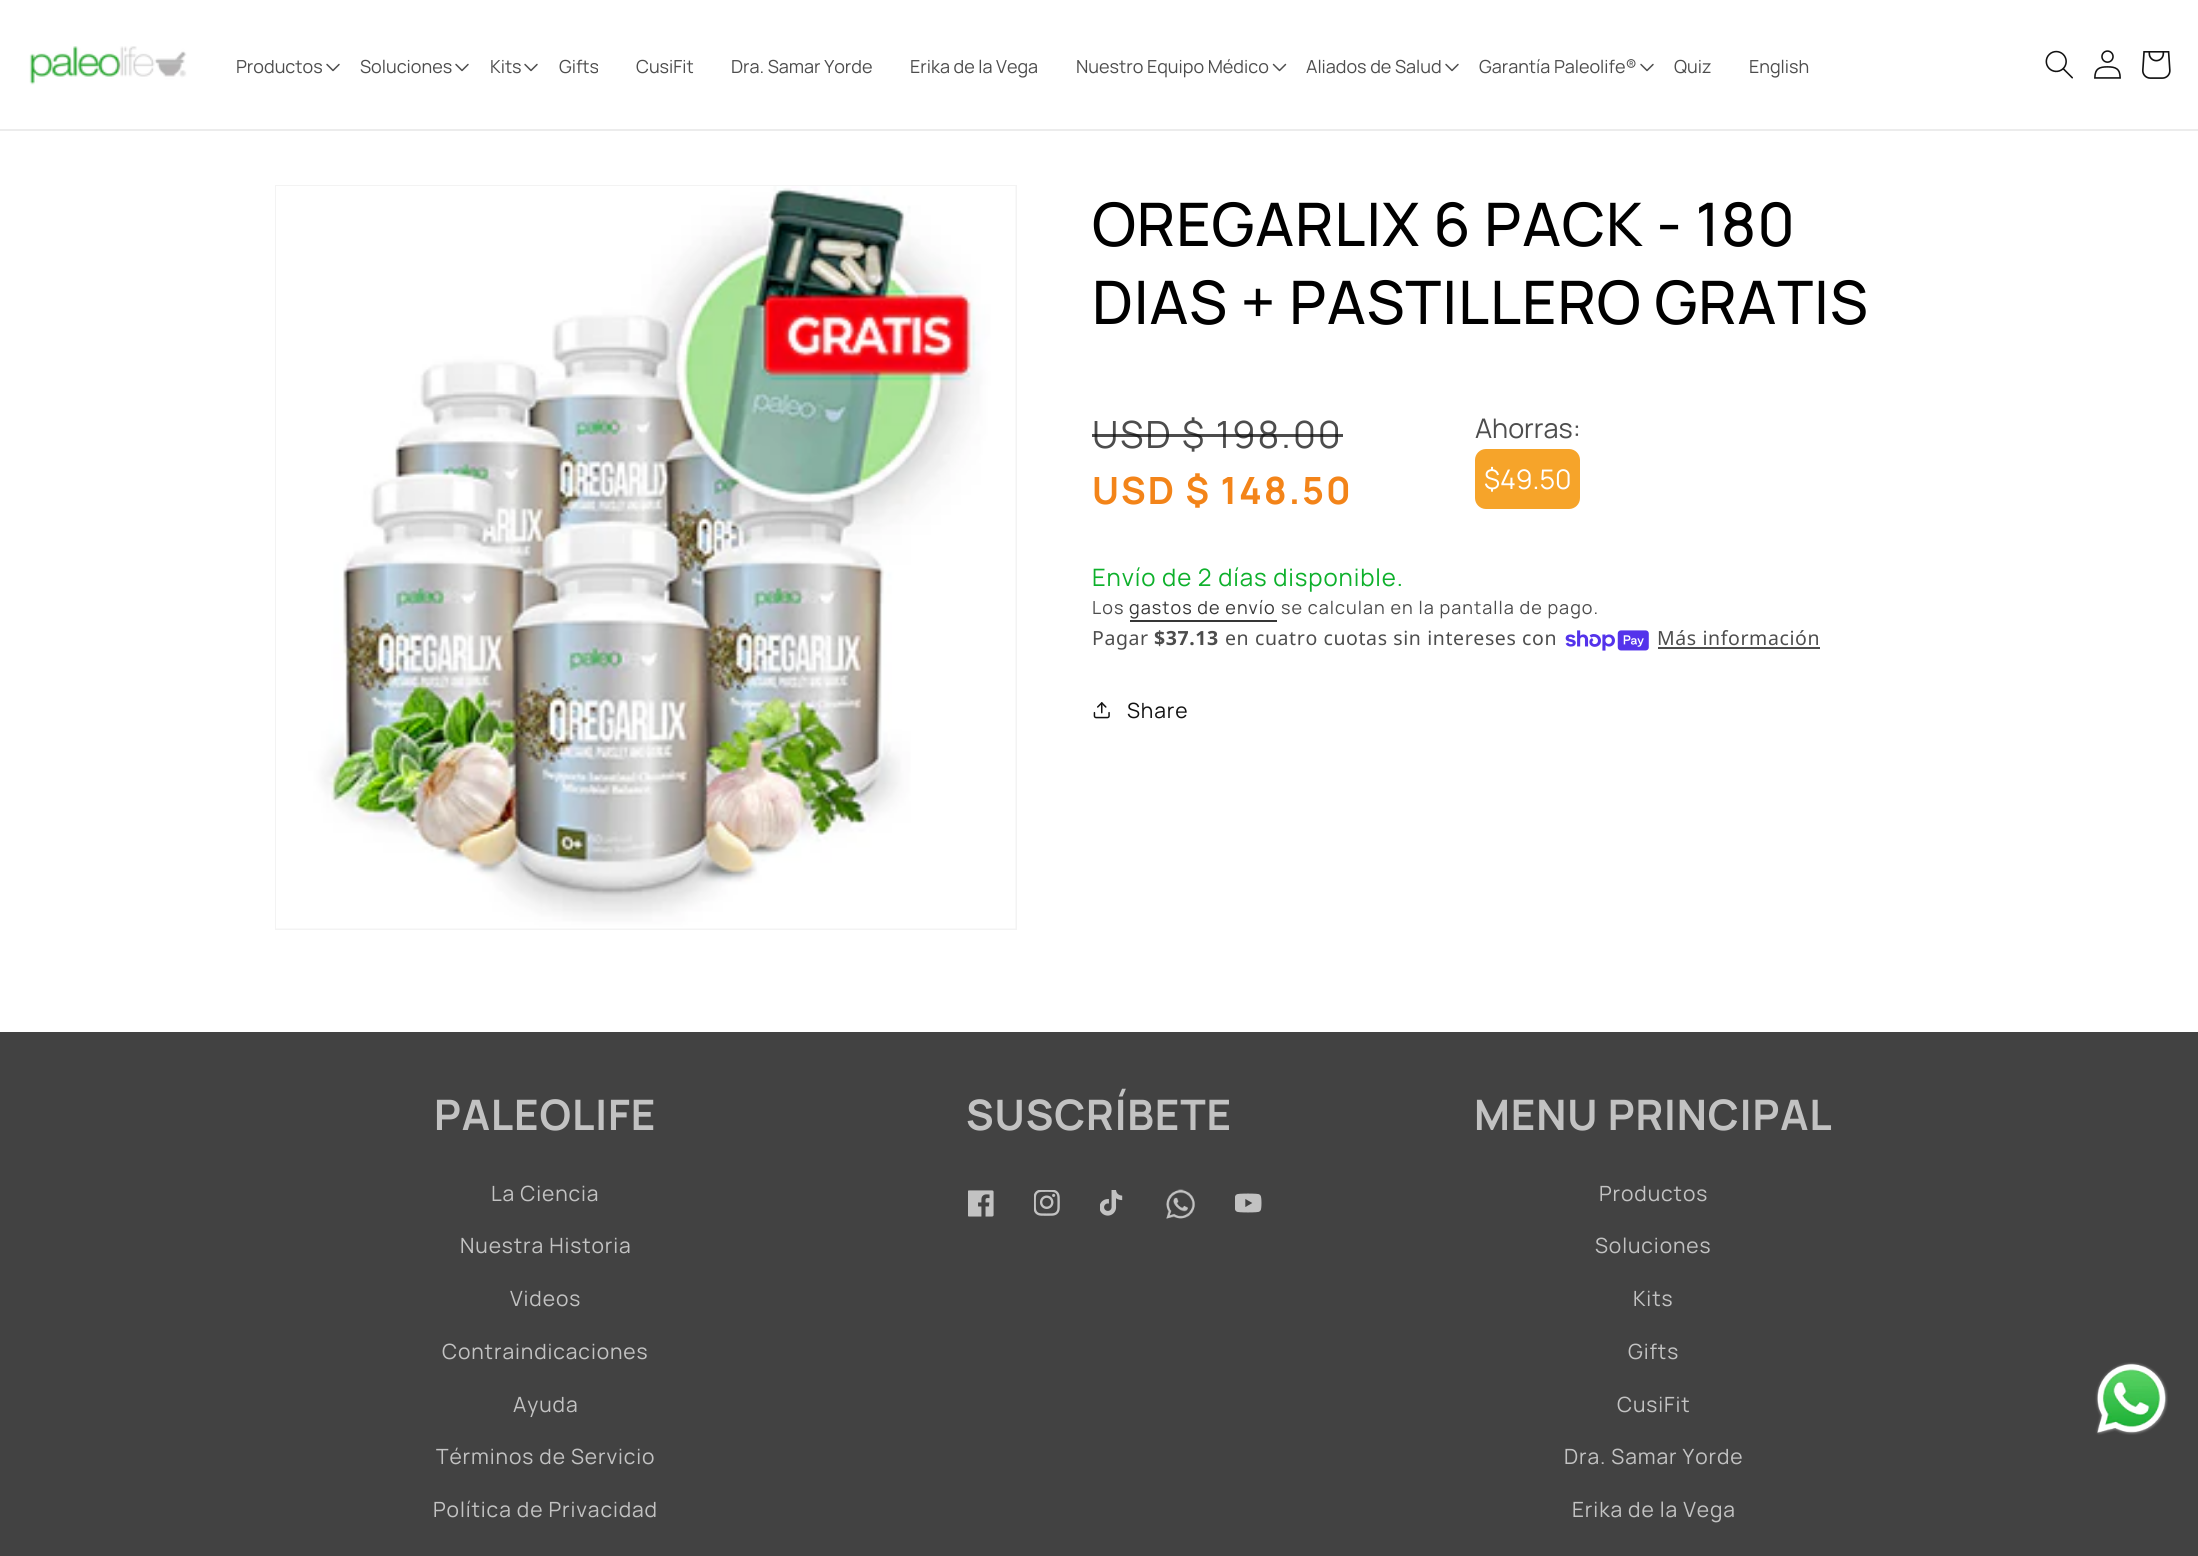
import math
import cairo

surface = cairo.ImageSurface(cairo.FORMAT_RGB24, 2198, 1556)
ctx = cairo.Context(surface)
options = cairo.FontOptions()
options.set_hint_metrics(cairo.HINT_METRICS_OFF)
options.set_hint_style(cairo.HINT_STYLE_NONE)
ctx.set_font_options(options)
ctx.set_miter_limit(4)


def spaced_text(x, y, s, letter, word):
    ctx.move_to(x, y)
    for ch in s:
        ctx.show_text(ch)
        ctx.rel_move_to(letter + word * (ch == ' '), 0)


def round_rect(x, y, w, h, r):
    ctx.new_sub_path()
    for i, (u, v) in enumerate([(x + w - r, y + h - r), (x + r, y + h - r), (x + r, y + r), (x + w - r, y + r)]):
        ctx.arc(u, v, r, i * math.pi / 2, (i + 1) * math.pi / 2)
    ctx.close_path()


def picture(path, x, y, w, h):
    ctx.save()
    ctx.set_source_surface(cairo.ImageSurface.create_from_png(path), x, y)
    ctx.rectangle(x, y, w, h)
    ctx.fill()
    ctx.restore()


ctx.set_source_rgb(1, 1, 1)
ctx.paint()
ctx.set_source_rgb(0.925, 0.925, 0.925)
ctx.rectangle(0, 129, 2198, 2)
ctx.fill()
picture("img1.png", 29, 46, 158, 39)
ctx.select_font_face("Manrope ExtraLight")
ctx.set_font_size(18)
ctx.set_source_rgb(0.302, 0.302, 0.302)
ctx.move_to(236, 73)
ctx.show_text("Productos")
picture("img2.png", 326, 63, 14, 9)
ctx.move_to(360, 73)
ctx.show_text("Soluciones")
picture("img2.png", 455, 63, 14, 9)
ctx.move_to(490, 73)
ctx.show_text("Kits")
picture("img2.png", 524, 63, 14, 9)
ctx.move_to(559, 73)
ctx.show_text("Gifts")
ctx.move_to(636, 73)
ctx.show_text("CusiFit")
ctx.move_to(731, 73)
ctx.show_text("Dra. Samar Yorde")
ctx.move_to(910, 73)
ctx.show_text("Erika de la Vega")
ctx.move_to(1076, 73)
ctx.show_text("Nuestro Equipo Médico")
picture("img3.png", 1272, 63, 15, 9)
ctx.move_to(1306, 73)
ctx.show_text("Aliados de Salud")
picture("img2.png", 1445, 63, 14, 9)
ctx.move_to(1479, 73)
ctx.show_text("Garantía Paleolife®")
picture("img2.png", 1640, 63, 14, 9)
ctx.move_to(1674, 73)
ctx.show_text("Quiz")
ctx.move_to(1749, 73)
ctx.show_text("English")
picture("img4.png", 2045, 50, 28, 29)
picture("img5.png", 2094, 50, 27, 29)
picture("img6.png", 2142, 51, 29, 28)
ctx.rectangle(276, 186, 740, 743)
ctx.set_source_rgb(0.953, 0.953, 0.953)
ctx.stroke()
picture("img7.png", 276, 186, 740, 743)
ctx.select_font_face("Manrope Medium")
ctx.set_font_size(60)
ctx.set_source_rgb(0, 0, 0)
spaced_text(1092, 246, "OREGARLIX 6 PACK - 180", 0.9, 0)
spaced_text(1092, 324, "DIAS + PASTILLERO GRATIS", 0.9, 0)
ctx.select_font_face("Manrope ExtraLight")
ctx.set_font_size(37.5)
ctx.set_source_rgb(0.302, 0.302, 0.302)
spaced_text(1092, 448, "USD $ 198.00", 2, 0)
ctx.set_source_rgba(0.071, 0.071, 0.071, 0.75)
ctx.rectangle(1092, 434, 251, 3)
ctx.fill()
ctx.select_font_face("Manrope", cairo.FONT_SLANT_NORMAL, cairo.FONT_WEIGHT_BOLD)
ctx.set_source_rgb(0.953, 0.518, 0.098)
spaced_text(1092, 504, "USD $ 148.50", 2, 0)
ctx.select_font_face("Manrope ExtraLight")
ctx.set_font_size(27)
ctx.set_source_rgb(0.302, 0.302, 0.302)
ctx.move_to(1475, 438)
ctx.show_text("Ahorras:")
ctx.set_source_rgb(0.961, 0.643, 0.165)
round_rect(1475, 449, 105, 60, 11)
ctx.fill()
ctx.set_source_rgb(1, 1, 1)
ctx.move_to(1484, 489)
ctx.show_text("$49.50")
ctx.set_font_size(24)
ctx.set_source_rgb(0.051, 0.69, 0.169)
spaced_text(1092, 586, "Envío de 2 días disponible.", 0.9, 0)
ctx.set_font_size(18)
ctx.set_source_rgb(0.302, 0.302, 0.302)
spaced_text(1092, 614, "Los", 1.05, 0)
ctx.set_source_rgb(0.212, 0.212, 0.212)
spaced_text(1129, 614, "gastos de envío", 1.05, 0)
ctx.rectangle(1130, 620, 147, 2)
ctx.fill()
ctx.set_source_rgb(0.302, 0.302, 0.302)
spaced_text(1281, 614, "se calculan en la pantalla de pago.", 1.05, 0)
ctx.select_font_face("Noto Sans")
ctx.set_font_size(19.5)
spaced_text(1092, 645, "Pagar", 0.6, 0)
ctx.select_font_face("Noto Sans", cairo.FONT_SLANT_NORMAL, cairo.FONT_WEIGHT_BOLD)
spaced_text(1154, 645, "$37.13", 0.6, 0)
ctx.select_font_face("Noto Sans")
spaced_text(1225, 645, "en cuatro cuotas sin intereses con", 0.6, 0)
picture("img8.png", 1565, 630, 84, 21)
spaced_text(1657, 645, "Más información", 0.6, 0)
ctx.rectangle(1658, 647, 162, 2)
ctx.fill()
picture("img9.png", 1093, 702, 17, 17)
ctx.select_font_face("Manrope ExtraLight")
ctx.set_font_size(21)
ctx.set_source_rgb(0.071, 0.071, 0.071)
spaced_text(1127, 718, "Share", 0.9, 0)
ctx.set_source_rgb(0.259, 0.259, 0.259)
ctx.rectangle(0, 1032, 2198, 524)
ctx.fill()
ctx.select_font_face("Manrope", cairo.FONT_SLANT_NORMAL, cairo.FONT_WEIGHT_BOLD)
ctx.set_font_size(42)
ctx.set_source_rgb(0.761, 0.761, 0.761)
spaced_text(434, 1130, "PALEOLIFE", 0.9, 0)
ctx.select_font_face("Manrope ExtraLight")
ctx.set_font_size(21)
spaced_text(491, 1201, "La Ciencia", 0.9, 0)
spaced_text(460, 1253, "Nuestra Historia", 0.9, 0)
spaced_text(510, 1306, "Videos", 0.9, 0)
spaced_text(442, 1359, "Contraindicaciones", 0.9, 0)
spaced_text(513, 1412, "Ayuda", 0.9, 0)
spaced_text(436, 1464, "Términos de Servicio", 0.9, 0)
spaced_text(433, 1517, "Política de Privacidad", 0.9, 0)
ctx.select_font_face("Manrope", cairo.FONT_SLANT_NORMAL, cairo.FONT_WEIGHT_BOLD)
ctx.set_font_size(42)
spaced_text(966, 1130, "SUSCRÍBETE", 0.9, 0)
picture("img10.png", 968, 1190, 26, 27)
picture("img11.png", 1034, 1190, 26, 26)
picture("img12.png", 1100, 1190, 23, 26)
picture("img13.png", 1166, 1189, 29, 30)
picture("img14.png", 1235, 1193, 27, 20)
spaced_text(1474, 1130, "MENU PRINCIPAL", 0.9, 0)
ctx.select_font_face("Manrope ExtraLight")
ctx.set_font_size(21)
spaced_text(1599, 1201, "Productos", 0.9, 0)
spaced_text(1595, 1253, "Soluciones", 0.9, 0)
spaced_text(1633, 1306, "Kits", 0.9, 0)
spaced_text(1628, 1359, "Gifts", 0.9, 0)
spaced_text(1617, 1412, "CusiFit", 0.9, 0)
spaced_text(1564, 1464, "Dra. Samar Yorde", 0.9, 0)
spaced_text(1572, 1517, "Erika de la Vega", 0.9, 0)
picture("img15.png", 2095, 1362, 73, 73)
surface.write_to_png("page.png")
